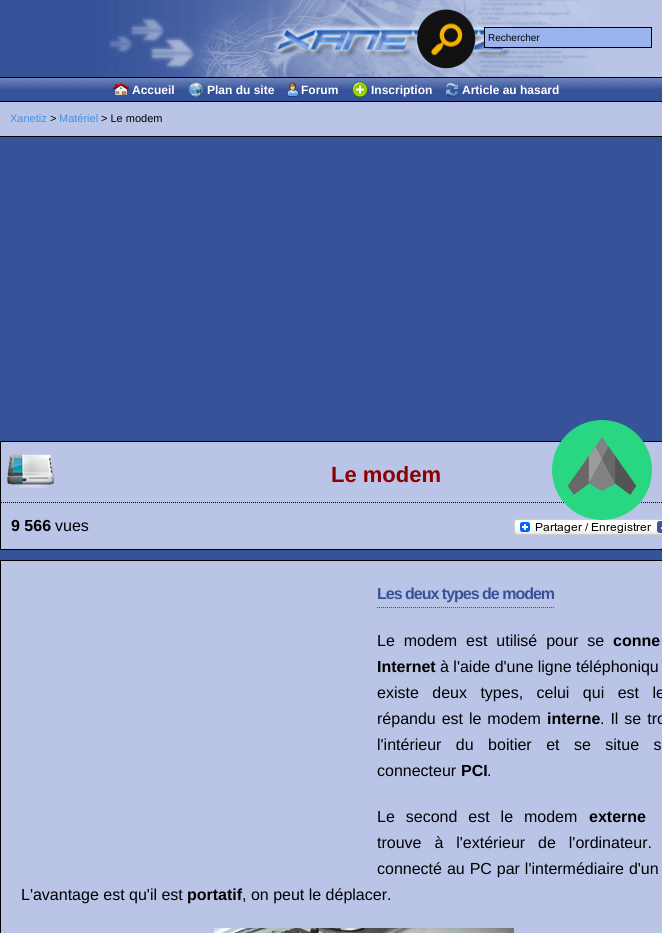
import math
import cairo

surface = cairo.ImageSurface(cairo.FORMAT_RGB24, 662, 933)
ctx = cairo.Context(surface)
options = cairo.FontOptions()
options.set_hint_metrics(cairo.HINT_METRICS_OFF)
options.set_hint_style(cairo.HINT_STYLE_NONE)
ctx.set_font_options(options)
ctx.set_miter_limit(4)


def spaced_text(x, y, s, letter, word):
    ctx.move_to(x, y)
    for ch in s:
        ctx.show_text(ch)
        ctx.rel_move_to(letter + word * (ch == ' '), 0)


def picture(path, x, y, w, h):
    ctx.save()
    ctx.set_source_surface(cairo.ImageSurface.create_from_png(path), x, y)
    ctx.rectangle(x, y, w, h)
    ctx.fill()
    ctx.restore()


ctx.set_source_rgb(0.212, 0.325, 0.6)
ctx.paint()
ctx.set_source_rgb(0.729, 0.769, 0.906)
ctx.rectangle(598, 0, 64, 77)
ctx.fill()
picture("img1.png", 99, 0, 499, 77)
picture("img2.png", 417, 9, 59, 60)
ctx.set_source_rgb(0.608, 0.706, 0.933)
ctx.rectangle(484.5, 27.5, 167, 20)
ctx.fill_preserve()
ctx.set_source_rgb(0, 0, 0)
ctx.set_line_width(1)
ctx.stroke()
ctx.select_font_face("Liberation Sans")
ctx.set_font_size(10)
ctx.move_to(488, 41)
ctx.show_text("Rechercher")
picture("img3.png", 0, 78, 662, 11)
ctx.rectangle(0, 77, 662, 1)
ctx.fill()
picture("img4.png", 113, 82, 16, 13)
ctx.select_font_face("Liberation Sans", cairo.FONT_SLANT_NORMAL, cairo.FONT_WEIGHT_BOLD)
ctx.set_font_size(12)
ctx.set_source_rgb(1, 1, 1)
ctx.move_to(132, 94)
ctx.show_text("Accueil")
picture("img5.png", 188, 82, 16, 15)
ctx.move_to(207, 94)
ctx.show_text("Plan du site")
picture("img6.png", 287, 82, 11, 15)
ctx.move_to(301, 94)
ctx.show_text("Forum")
picture("img7.png", 352, 82, 16, 15)
ctx.move_to(371, 94)
ctx.show_text("Inscription")
picture("img8.png", 446, 82, 13, 15)
ctx.move_to(462, 94)
ctx.show_text("Article au hasard")
ctx.set_source_rgb(0.729, 0.769, 0.906)
ctx.rectangle(0, 102, 662, 34)
ctx.fill()
ctx.set_source_rgb(0, 0, 0)
ctx.rectangle(0, 101, 662, 1)
ctx.fill()
ctx.rectangle(0, 136, 662, 1)
ctx.fill()
ctx.select_font_face("Liberation Sans")
ctx.set_font_size(11)
ctx.set_source_rgb(0.263, 0.569, 0.871)
ctx.move_to(10, 122)
ctx.show_text("Xanetiz")
ctx.set_source_rgb(0, 0, 0)
ctx.move_to(50, 122)
ctx.show_text(">")
ctx.set_source_rgb(0.263, 0.569, 0.871)
ctx.move_to(59, 122)
ctx.show_text("Matériel")
ctx.set_source_rgb(0, 0, 0)
ctx.move_to(101, 122)
ctx.show_text("> Le modem")
ctx.set_source_rgb(0.729, 0.769, 0.906)
ctx.rectangle(0.5, 441.5, 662, 108)
ctx.fill_preserve()
ctx.set_source_rgb(0, 0, 0)
ctx.stroke()
ctx.new_path()
ctx.move_to(1, 502.5)
ctx.line_to(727, 502.5)
ctx.set_dash([1, 1])
ctx.stroke()
picture("img11.png", 514, 519, 148, 16)
picture("img9.png", 552, 420, 100, 100)
picture("img10.png", 7, 454, 48, 34)
ctx.select_font_face("Liberation Sans", cairo.FONT_SLANT_NORMAL, cairo.FONT_WEIGHT_BOLD)
ctx.set_font_size(22)
ctx.set_source_rgb(0.545, 0, 0)
ctx.move_to(331, 482)
ctx.show_text("Le modem")
ctx.set_font_size(16)
ctx.set_source_rgb(0, 0, 0)
ctx.move_to(11, 531)
ctx.show_text("9 566")
ctx.select_font_face("Liberation Sans")
ctx.move_to(55, 531)
ctx.show_text("vues")
ctx.set_source_rgb(0.729, 0.769, 0.906)
ctx.rectangle(0.5, 560.5, 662, 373)
ctx.fill_preserve()
ctx.set_source_rgb(0, 0, 0)
ctx.set_dash([])
ctx.stroke()
ctx.new_path()
ctx.move_to(377, 607.5)
ctx.line_to(554, 607.5)
ctx.set_source_rgb(0.212, 0.325, 0.6)
ctx.set_dash([1, 1])
ctx.stroke()
ctx.select_font_face("Liberation Sans", cairo.FONT_SLANT_NORMAL, cairo.FONT_WEIGHT_BOLD)
spaced_text(377, 599, "Les deux types de modem", -1, 0)
ctx.select_font_face("Liberation Sans")
ctx.set_source_rgb(0, 0, 0)
spaced_text(377, 646, "Le modem est utilisé pour se", 0, 4.5)
ctx.select_font_face("Liberation Sans", cairo.FONT_SLANT_NORMAL, cairo.FONT_WEIGHT_BOLD)
spaced_text(613, 646, "conne", 0, 4.5)
ctx.move_to(377, 672)
ctx.show_text("Internet")
ctx.select_font_face("Liberation Sans")
ctx.move_to(440, 672)
ctx.show_text("à l'aide d'une ligne téléphoniqu")
spaced_text(377, 698, "existe deux types, celui qui est le", 0, 9)
spaced_text(377, 724, "répandu est le modem", 0, 1.5)
ctx.select_font_face("Liberation Sans", cairo.FONT_SLANT_NORMAL, cairo.FONT_WEIGHT_BOLD)
ctx.move_to(547, 724)
ctx.show_text("interne")
ctx.select_font_face("Liberation Sans")
spaced_text(600, 724, ". Il se tro", 0, 1.5)
spaced_text(377, 750, "l'intérieur du boitier et se situe s", 0, 10)
ctx.move_to(377, 776)
ctx.show_text("connecteur")
ctx.select_font_face("Liberation Sans", cairo.FONT_SLANT_NORMAL, cairo.FONT_WEIGHT_BOLD)
ctx.move_to(461, 776)
ctx.show_text("PCI")
ctx.select_font_face("Liberation Sans")
ctx.move_to(487, 776)
ctx.show_text(".")
spaced_text(377, 822, "Le second est le modem", 0, 6.5)
ctx.select_font_face("Liberation Sans", cairo.FONT_SLANT_NORMAL, cairo.FONT_WEIGHT_BOLD)
ctx.move_to(589, 822)
ctx.show_text("externe")
ctx.select_font_face("Liberation Sans")
spaced_text(377, 848, "trouve à l'extérieur de l'ordinateur.", 0, 8.5)
spaced_text(377, 874, "connecté au PC par l'intermédiaire d'un", 0, 0.5)
ctx.move_to(21, 900)
ctx.show_text("L'avantage est qu'il est")
ctx.select_font_face("Liberation Sans", cairo.FONT_SLANT_NORMAL, cairo.FONT_WEIGHT_BOLD)
ctx.move_to(187, 900)
ctx.show_text("portatif")
ctx.select_font_face("Liberation Sans")
ctx.move_to(242, 900)
ctx.show_text(", on peut le déplacer.")
picture("img12.png", 214, 928, 300, 5)
surface.write_to_png("page.png")
